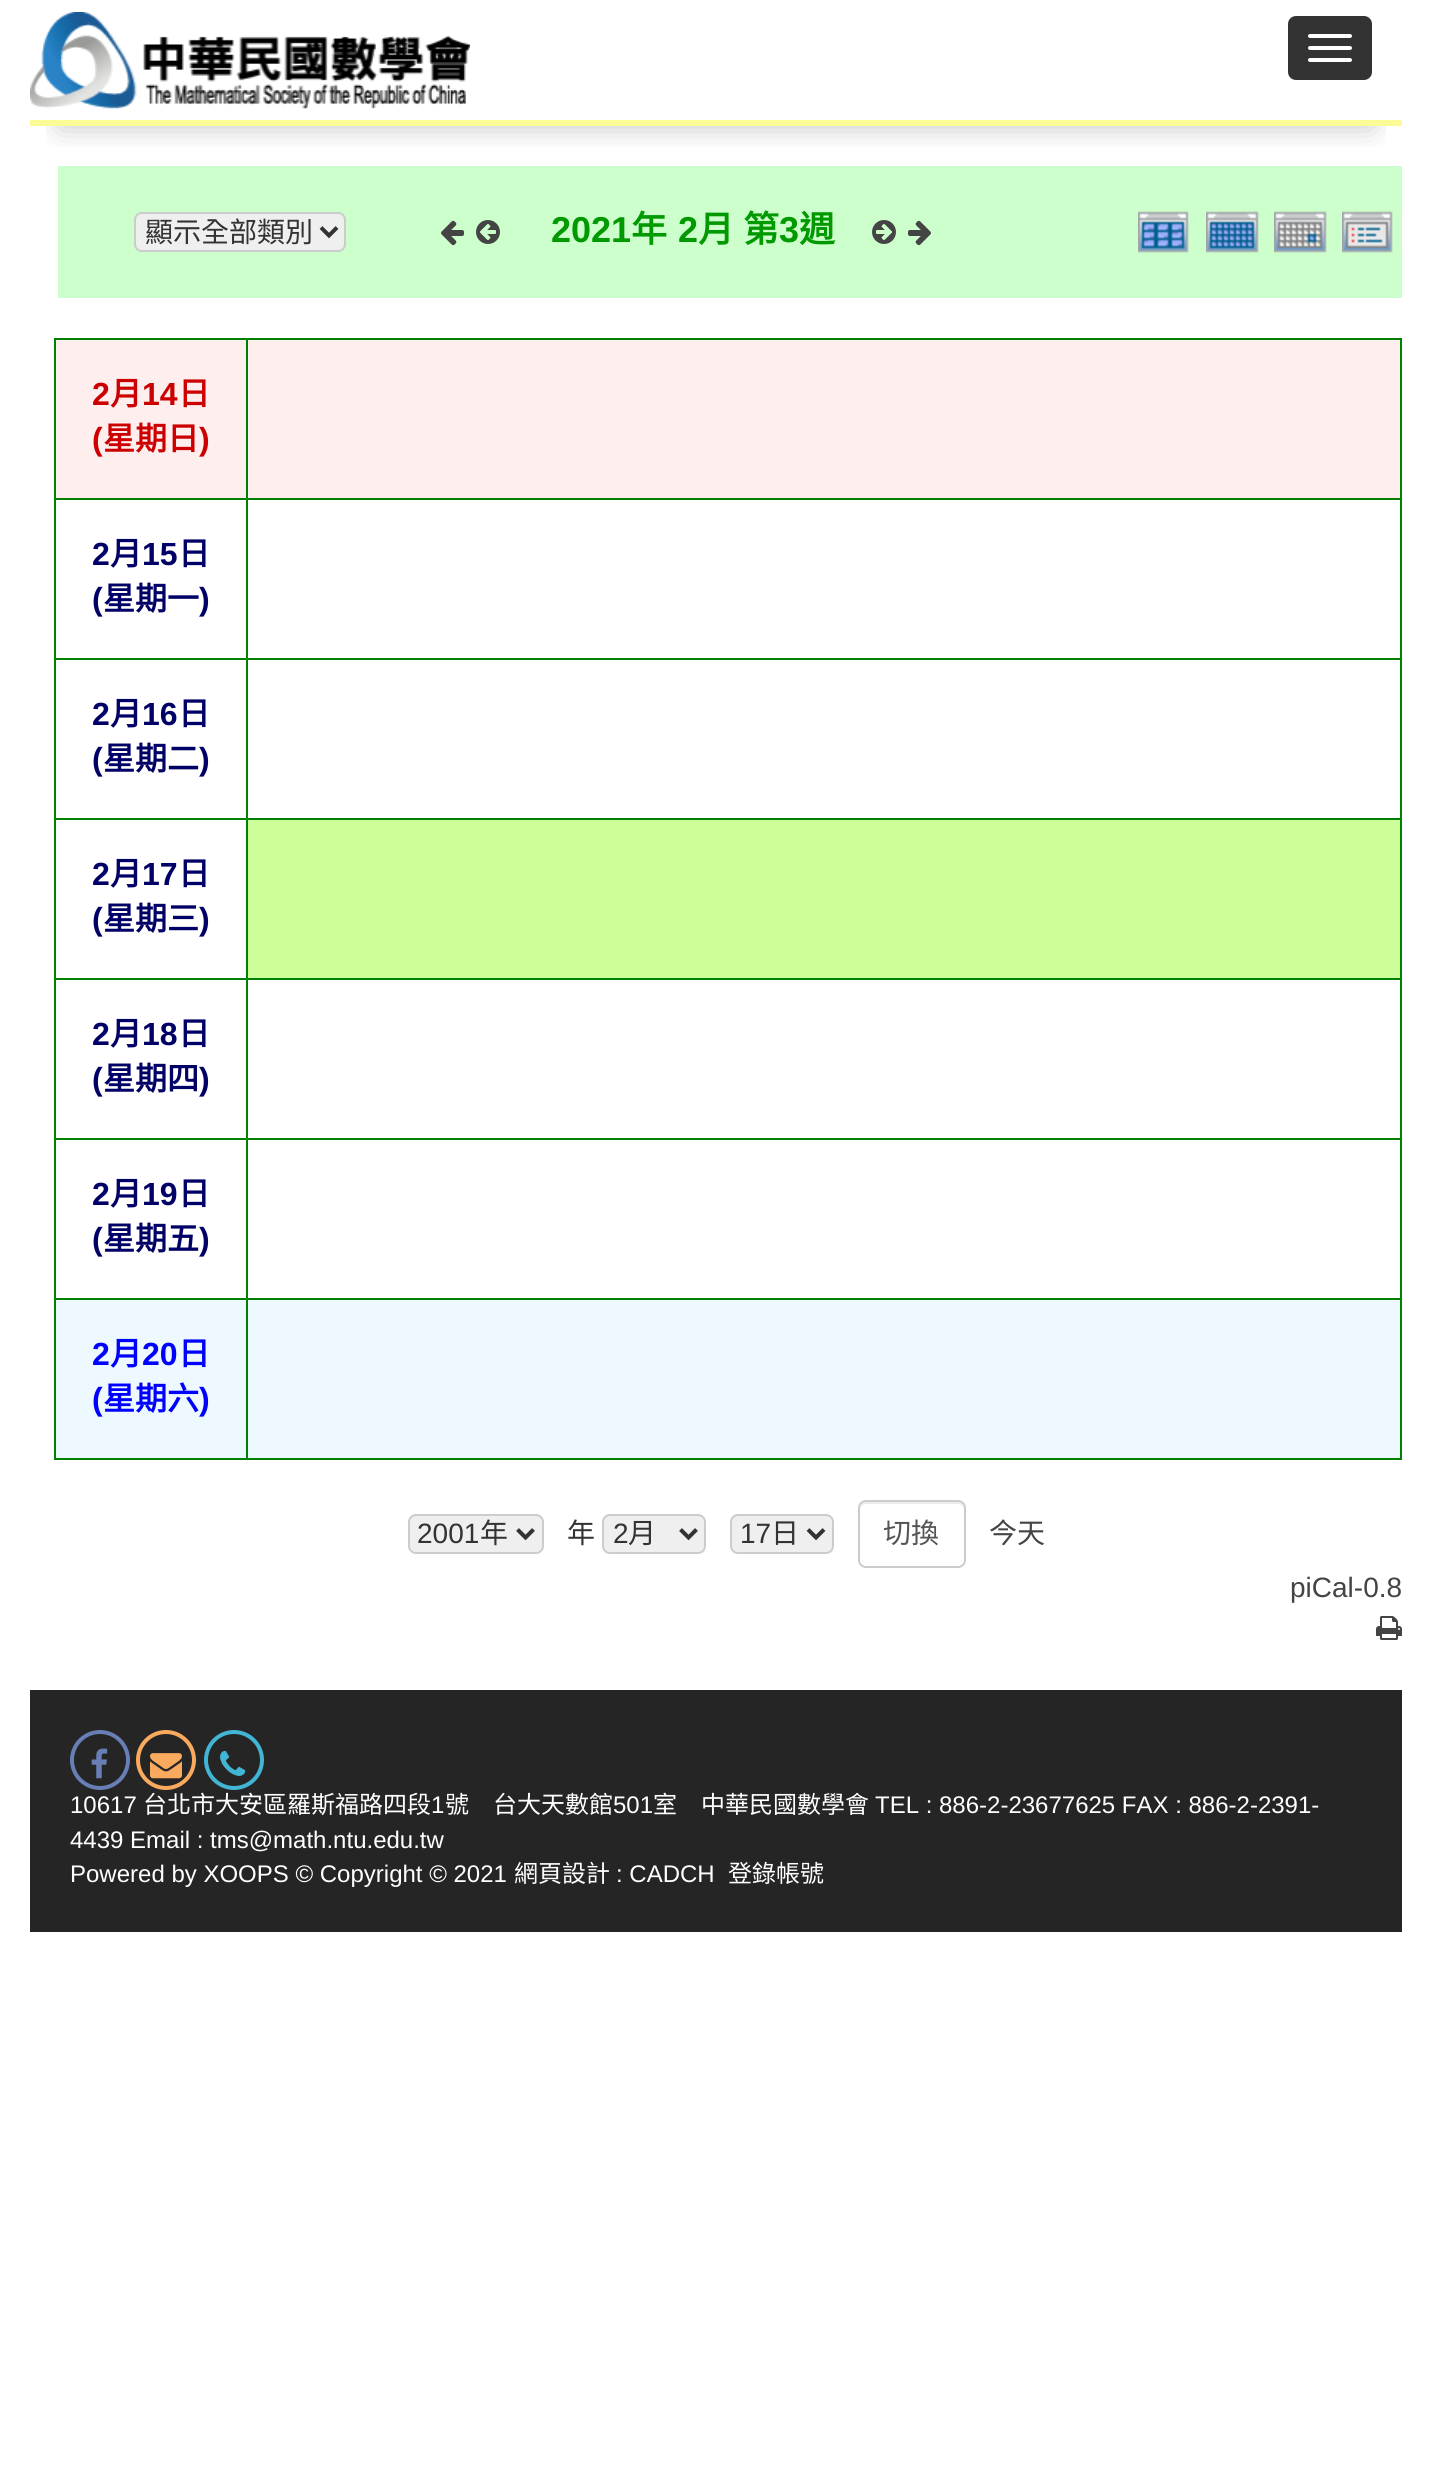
import math
import cairo

surface = cairo.ImageSurface(cairo.FORMAT_RGB24, 1431, 2472)
ctx = cairo.Context(surface)
options = cairo.FontOptions()
options.set_hint_metrics(cairo.HINT_METRICS_OFF)
options.set_hint_style(cairo.HINT_STYLE_NONE)
ctx.set_font_options(options)
ctx.set_miter_limit(4)


def spaced_text(x, y, s, letter, word):
    ctx.move_to(x, y)
    for ch in s:
        ctx.show_text(ch)
        ctx.rel_move_to(letter + word * (ch == ' '), 0)


def round_rect(x, y, w, h, r):
    ctx.new_sub_path()
    for i, (u, v) in enumerate([(x + w - r, y + h - r), (x + r, y + h - r), (x + r, y + r), (x + w - r, y + r)]):
        ctx.arc(u, v, r, i * math.pi / 2, (i + 1) * math.pi / 2)
    ctx.close_path()


def shadow(x, y, w, h, r, blur, alpha):
    ctx.push_group_with_content(cairo.CONTENT_ALPHA)
    ctx.set_operator(cairo.OPERATOR_SOURCE)
    for i in range(15, -16, -2):
        e = blur * i / 6
        if min(w, h) + 2 * e > 0:
            ctx.set_source_rgba(0, 0, 0, alpha * math.erfc((i - 1) / 8.5) / 2)
            round_rect(x - e, y - e, w + 2 * e, h + 2 * e, max(0, min(r + e + blur * .6, min(w, h) / 2 + e)))
            ctx.fill()
    ctx.mask(ctx.pop_group())


def picture(path, x, y, w, h):
    ctx.save()
    ctx.set_source_surface(cairo.ImageSurface.create_from_png(path), x, y)
    ctx.rectangle(x, y, w, h)
    ctx.fill()
    ctx.restore()


ctx.set_source_rgb(1, 1, 1)
ctx.paint()
ctx.set_source_rgb(0.8, 1, 0.8)
ctx.rectangle(58, 166, 1344, 132)
ctx.fill()
ctx.save()
ctx.rectangle(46, 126, 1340, 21)
ctx.clip()
ctx.set_source_rgb(0, 0, 0)
shadow(60, 60, 1312, 66, 0, 15, 0.24)
ctx.restore()
ctx.set_source_rgb(0.984, 0.988, 0.584)
ctx.rectangle(30, 120, 1372, 6)
ctx.fill()
picture("img1.png", 30, 12, 440, 97)
ctx.set_source_rgb(0.2, 0.2, 0.2)
round_rect(1288, 16, 84, 64, 8)
ctx.fill()
ctx.set_source_rgb(1, 1, 1)
round_rect(1308, 34, 44, 4, 2)
ctx.fill()
round_rect(1308, 46, 44, 4, 2)
ctx.fill()
round_rect(1308, 58, 44, 4, 2)
ctx.fill()
ctx.set_source_rgb(0.937, 0.937, 0.937)
round_rect(135, 213, 210, 38, 7)
ctx.fill_preserve()
ctx.set_source_rgb(0.8, 0.8, 0.8)
ctx.stroke()
ctx.new_path()
ctx.move_to(321, 227.5)
ctx.line_to(329, 235.5)
ctx.line_to(337, 227.5)
ctx.set_source_rgb(0.2, 0.2, 0.2)
ctx.set_line_width(4)
ctx.stroke()
ctx.select_font_face("Noto Sans CJK TC")
ctx.set_font_size(28)
ctx.move_to(145, 242)
ctx.show_text("顯示全部類別")
picture("img2.png", 441, 220, 23, 26)
picture("img3.png", 476, 220, 24, 24)
ctx.select_font_face("Liberation Sans", cairo.FONT_SLANT_NORMAL, cairo.FONT_WEIGHT_BOLD)
ctx.set_font_size(36)
ctx.set_source_rgb(0, 0.6, 0)
ctx.move_to(551, 242)
ctx.show_text("2021")
ctx.select_font_face("Noto Sans CJK TC", cairo.FONT_SLANT_NORMAL, cairo.FONT_WEIGHT_BOLD)
ctx.move_to(631, 242)
ctx.show_text("年")
ctx.select_font_face("Liberation Sans", cairo.FONT_SLANT_NORMAL, cairo.FONT_WEIGHT_BOLD)
ctx.move_to(678, 242)
ctx.show_text("2")
ctx.select_font_face("Noto Sans CJK TC", cairo.FONT_SLANT_NORMAL, cairo.FONT_WEIGHT_BOLD)
spaced_text(698, 242, "月 第", 0, 1)
ctx.select_font_face("Liberation Sans", cairo.FONT_SLANT_NORMAL, cairo.FONT_WEIGHT_BOLD)
ctx.move_to(779, 242)
ctx.show_text("3")
ctx.select_font_face("Noto Sans CJK TC", cairo.FONT_SLANT_NORMAL, cairo.FONT_WEIGHT_BOLD)
ctx.move_to(799, 242)
ctx.show_text("週")
picture("img4.png", 872, 220, 24, 24)
picture("img5.png", 908, 220, 23, 26)
picture("img6.png", 1138, 211, 51, 42)
picture("img7.png", 1206, 211, 53, 42)
picture("img8.png", 1274, 211, 53, 42)
picture("img9.png", 1342, 211, 51, 42)
ctx.set_source_rgb(1, 0.933, 0.933)
ctx.rectangle(56, 340, 190, 158)
ctx.fill()
ctx.set_source_rgb(0, 0.502, 0)
ctx.rectangle(246, 338, 1156, 2)
ctx.fill()
ctx.rectangle(246, 498, 1156, 2)
ctx.fill()
ctx.rectangle(246, 658, 1156, 2)
ctx.fill()
ctx.rectangle(246, 818, 1156, 2)
ctx.fill()
ctx.rectangle(246, 978, 1156, 2)
ctx.fill()
ctx.rectangle(246, 1138, 1156, 2)
ctx.fill()
ctx.rectangle(246, 1298, 1156, 2)
ctx.fill()
ctx.rectangle(1400, 1298, 2, 162)
ctx.fill()
ctx.rectangle(246, 1458, 1156, 2)
ctx.fill()
ctx.rectangle(246, 1298, 2, 162)
ctx.fill()
ctx.rectangle(54, 1298, 194, 2)
ctx.fill()
ctx.rectangle(246, 1138, 2, 162)
ctx.fill()
ctx.rectangle(54, 1138, 194, 2)
ctx.fill()
ctx.rectangle(246, 978, 2, 162)
ctx.fill()
ctx.rectangle(54, 978, 194, 2)
ctx.fill()
ctx.rectangle(246, 818, 2, 162)
ctx.fill()
ctx.rectangle(54, 818, 194, 2)
ctx.fill()
ctx.rectangle(246, 658, 2, 162)
ctx.fill()
ctx.rectangle(54, 658, 194, 2)
ctx.fill()
ctx.rectangle(246, 498, 2, 162)
ctx.fill()
ctx.rectangle(54, 498, 194, 2)
ctx.fill()
ctx.rectangle(246, 338, 2, 162)
ctx.fill()
ctx.rectangle(54, 338, 194, 2)
ctx.fill()
ctx.rectangle(54, 1458, 194, 2)
ctx.fill()
ctx.rectangle(54, 1298, 2, 162)
ctx.fill()
ctx.rectangle(54, 1138, 2, 162)
ctx.fill()
ctx.rectangle(54, 978, 2, 162)
ctx.fill()
ctx.rectangle(54, 818, 2, 162)
ctx.fill()
ctx.rectangle(54, 658, 2, 162)
ctx.fill()
ctx.rectangle(54, 498, 2, 162)
ctx.fill()
ctx.rectangle(54, 338, 2, 162)
ctx.fill()
ctx.select_font_face("Liberation Sans", cairo.FONT_SLANT_NORMAL, cairo.FONT_WEIGHT_BOLD)
ctx.set_font_size(32)
ctx.set_source_rgb(0.8, 0, 0)
ctx.move_to(92, 405)
ctx.show_text("2")
ctx.select_font_face("Noto Sans CJK TC", cairo.FONT_SLANT_NORMAL, cairo.FONT_WEIGHT_BOLD)
ctx.move_to(110, 405)
ctx.show_text("月")
ctx.select_font_face("Liberation Sans", cairo.FONT_SLANT_NORMAL, cairo.FONT_WEIGHT_BOLD)
ctx.move_to(142, 405)
ctx.show_text("14")
ctx.select_font_face("Noto Sans CJK TC", cairo.FONT_SLANT_NORMAL, cairo.FONT_WEIGHT_BOLD)
ctx.move_to(178, 405)
ctx.show_text("日")
ctx.select_font_face("Liberation Sans", cairo.FONT_SLANT_NORMAL, cairo.FONT_WEIGHT_BOLD)
ctx.move_to(92, 450)
ctx.show_text("(")
ctx.select_font_face("Noto Sans CJK TC", cairo.FONT_SLANT_NORMAL, cairo.FONT_WEIGHT_BOLD)
ctx.move_to(103, 450)
ctx.show_text("星期日")
ctx.select_font_face("Liberation Sans", cairo.FONT_SLANT_NORMAL, cairo.FONT_WEIGHT_BOLD)
ctx.move_to(199, 450)
ctx.show_text(")")
ctx.set_source_rgb(1, 0.933, 0.933)
ctx.rectangle(248, 340, 1152, 158)
ctx.fill()
ctx.set_source_rgb(0, 0.502, 0)
ctx.rectangle(1400, 1138, 2, 162)
ctx.fill()
ctx.rectangle(1400, 978, 2, 162)
ctx.fill()
ctx.rectangle(1400, 818, 2, 162)
ctx.fill()
ctx.rectangle(1400, 658, 2, 162)
ctx.fill()
ctx.rectangle(1400, 498, 2, 162)
ctx.fill()
ctx.rectangle(1400, 338, 2, 162)
ctx.fill()
ctx.set_source_rgb(0, 0, 0.4)
ctx.move_to(92, 565)
ctx.show_text("2")
ctx.select_font_face("Noto Sans CJK TC", cairo.FONT_SLANT_NORMAL, cairo.FONT_WEIGHT_BOLD)
ctx.move_to(110, 565)
ctx.show_text("月")
ctx.select_font_face("Liberation Sans", cairo.FONT_SLANT_NORMAL, cairo.FONT_WEIGHT_BOLD)
ctx.move_to(142, 565)
ctx.show_text("15")
ctx.select_font_face("Noto Sans CJK TC", cairo.FONT_SLANT_NORMAL, cairo.FONT_WEIGHT_BOLD)
ctx.move_to(178, 565)
ctx.show_text("日")
ctx.select_font_face("Liberation Sans", cairo.FONT_SLANT_NORMAL, cairo.FONT_WEIGHT_BOLD)
ctx.move_to(92, 610)
ctx.show_text("(")
ctx.select_font_face("Noto Sans CJK TC", cairo.FONT_SLANT_NORMAL, cairo.FONT_WEIGHT_BOLD)
ctx.move_to(103, 610)
ctx.show_text("星期一")
ctx.select_font_face("Liberation Sans", cairo.FONT_SLANT_NORMAL, cairo.FONT_WEIGHT_BOLD)
ctx.move_to(199, 610)
ctx.show_text(")")
ctx.move_to(92, 725)
ctx.show_text("2")
ctx.select_font_face("Noto Sans CJK TC", cairo.FONT_SLANT_NORMAL, cairo.FONT_WEIGHT_BOLD)
ctx.move_to(110, 725)
ctx.show_text("月")
ctx.select_font_face("Liberation Sans", cairo.FONT_SLANT_NORMAL, cairo.FONT_WEIGHT_BOLD)
ctx.move_to(142, 725)
ctx.show_text("16")
ctx.select_font_face("Noto Sans CJK TC", cairo.FONT_SLANT_NORMAL, cairo.FONT_WEIGHT_BOLD)
ctx.move_to(178, 725)
ctx.show_text("日")
ctx.select_font_face("Liberation Sans", cairo.FONT_SLANT_NORMAL, cairo.FONT_WEIGHT_BOLD)
ctx.move_to(92, 770)
ctx.show_text("(")
ctx.select_font_face("Noto Sans CJK TC", cairo.FONT_SLANT_NORMAL, cairo.FONT_WEIGHT_BOLD)
ctx.move_to(103, 770)
ctx.show_text("星期二")
ctx.select_font_face("Liberation Sans", cairo.FONT_SLANT_NORMAL, cairo.FONT_WEIGHT_BOLD)
ctx.move_to(199, 770)
ctx.show_text(")")
ctx.move_to(92, 885)
ctx.show_text("2")
ctx.select_font_face("Noto Sans CJK TC", cairo.FONT_SLANT_NORMAL, cairo.FONT_WEIGHT_BOLD)
ctx.move_to(110, 885)
ctx.show_text("月")
ctx.select_font_face("Liberation Sans", cairo.FONT_SLANT_NORMAL, cairo.FONT_WEIGHT_BOLD)
ctx.move_to(142, 885)
ctx.show_text("17")
ctx.select_font_face("Noto Sans CJK TC", cairo.FONT_SLANT_NORMAL, cairo.FONT_WEIGHT_BOLD)
ctx.move_to(178, 885)
ctx.show_text("日")
ctx.select_font_face("Liberation Sans", cairo.FONT_SLANT_NORMAL, cairo.FONT_WEIGHT_BOLD)
ctx.move_to(92, 930)
ctx.show_text("(")
ctx.select_font_face("Noto Sans CJK TC", cairo.FONT_SLANT_NORMAL, cairo.FONT_WEIGHT_BOLD)
ctx.move_to(103, 930)
ctx.show_text("星期三")
ctx.select_font_face("Liberation Sans", cairo.FONT_SLANT_NORMAL, cairo.FONT_WEIGHT_BOLD)
ctx.move_to(199, 930)
ctx.show_text(")")
ctx.set_source_rgb(0.8, 1, 0.6)
ctx.rectangle(248, 820, 1152, 158)
ctx.fill()
ctx.set_source_rgb(0, 0, 0.4)
ctx.move_to(92, 1045)
ctx.show_text("2")
ctx.select_font_face("Noto Sans CJK TC", cairo.FONT_SLANT_NORMAL, cairo.FONT_WEIGHT_BOLD)
ctx.move_to(110, 1045)
ctx.show_text("月")
ctx.select_font_face("Liberation Sans", cairo.FONT_SLANT_NORMAL, cairo.FONT_WEIGHT_BOLD)
ctx.move_to(142, 1045)
ctx.show_text("18")
ctx.select_font_face("Noto Sans CJK TC", cairo.FONT_SLANT_NORMAL, cairo.FONT_WEIGHT_BOLD)
ctx.move_to(178, 1045)
ctx.show_text("日")
ctx.select_font_face("Liberation Sans", cairo.FONT_SLANT_NORMAL, cairo.FONT_WEIGHT_BOLD)
ctx.move_to(92, 1090)
ctx.show_text("(")
ctx.select_font_face("Noto Sans CJK TC", cairo.FONT_SLANT_NORMAL, cairo.FONT_WEIGHT_BOLD)
ctx.move_to(103, 1090)
ctx.show_text("星期四")
ctx.select_font_face("Liberation Sans", cairo.FONT_SLANT_NORMAL, cairo.FONT_WEIGHT_BOLD)
ctx.move_to(199, 1090)
ctx.show_text(")")
ctx.move_to(92, 1205)
ctx.show_text("2")
ctx.select_font_face("Noto Sans CJK TC", cairo.FONT_SLANT_NORMAL, cairo.FONT_WEIGHT_BOLD)
ctx.move_to(110, 1205)
ctx.show_text("月")
ctx.select_font_face("Liberation Sans", cairo.FONT_SLANT_NORMAL, cairo.FONT_WEIGHT_BOLD)
ctx.move_to(142, 1205)
ctx.show_text("19")
ctx.select_font_face("Noto Sans CJK TC", cairo.FONT_SLANT_NORMAL, cairo.FONT_WEIGHT_BOLD)
ctx.move_to(178, 1205)
ctx.show_text("日")
ctx.select_font_face("Liberation Sans", cairo.FONT_SLANT_NORMAL, cairo.FONT_WEIGHT_BOLD)
ctx.move_to(92, 1250)
ctx.show_text("(")
ctx.select_font_face("Noto Sans CJK TC", cairo.FONT_SLANT_NORMAL, cairo.FONT_WEIGHT_BOLD)
ctx.move_to(103, 1250)
ctx.show_text("星期五")
ctx.select_font_face("Liberation Sans", cairo.FONT_SLANT_NORMAL, cairo.FONT_WEIGHT_BOLD)
ctx.move_to(199, 1250)
ctx.show_text(")")
ctx.set_source_rgb(0.933, 0.969, 1)
ctx.rectangle(56, 1300, 190, 158)
ctx.fill()
ctx.set_source_rgb(0, 0, 1)
ctx.move_to(92, 1365)
ctx.show_text("2")
ctx.select_font_face("Noto Sans CJK TC", cairo.FONT_SLANT_NORMAL, cairo.FONT_WEIGHT_BOLD)
ctx.move_to(110, 1365)
ctx.show_text("月")
ctx.select_font_face("Liberation Sans", cairo.FONT_SLANT_NORMAL, cairo.FONT_WEIGHT_BOLD)
ctx.move_to(142, 1365)
ctx.show_text("20")
ctx.select_font_face("Noto Sans CJK TC", cairo.FONT_SLANT_NORMAL, cairo.FONT_WEIGHT_BOLD)
ctx.move_to(178, 1365)
ctx.show_text("日")
ctx.select_font_face("Liberation Sans", cairo.FONT_SLANT_NORMAL, cairo.FONT_WEIGHT_BOLD)
ctx.move_to(92, 1410)
ctx.show_text("(")
ctx.select_font_face("Noto Sans CJK TC", cairo.FONT_SLANT_NORMAL, cairo.FONT_WEIGHT_BOLD)
ctx.move_to(103, 1410)
ctx.show_text("星期六")
ctx.select_font_face("Liberation Sans", cairo.FONT_SLANT_NORMAL, cairo.FONT_WEIGHT_BOLD)
ctx.move_to(199, 1410)
ctx.show_text(")")
ctx.set_source_rgb(0.933, 0.969, 1)
ctx.rectangle(248, 1300, 1152, 158)
ctx.fill()
ctx.set_source_rgb(0.937, 0.937, 0.937)
round_rect(409, 1515, 134, 38, 7)
ctx.fill_preserve()
ctx.set_source_rgb(0.8, 0.8, 0.8)
ctx.set_line_width(2)
ctx.stroke()
ctx.new_path()
ctx.move_to(517.5, 1529.5)
ctx.line_to(525.5, 1537.5)
ctx.line_to(533.5, 1529.5)
ctx.set_source_rgb(0.2, 0.2, 0.2)
ctx.set_line_width(4)
ctx.stroke()
ctx.select_font_face("Liberation Sans")
ctx.set_font_size(28)
ctx.move_to(417, 1543)
ctx.show_text("2001")
ctx.select_font_face("Noto Sans CJK TC")
ctx.move_to(480, 1543)
ctx.show_text("年")
ctx.move_to(567, 1543)
ctx.show_text("年")
ctx.set_source_rgb(0.937, 0.937, 0.937)
round_rect(603, 1515, 102, 38, 7)
ctx.fill_preserve()
ctx.set_source_rgb(0.8, 0.8, 0.8)
ctx.set_line_width(2)
ctx.stroke()
ctx.new_path()
ctx.move_to(680.5, 1529.5)
ctx.line_to(688.5, 1537.5)
ctx.line_to(696.5, 1529.5)
ctx.set_source_rgb(0.2, 0.2, 0.2)
ctx.set_line_width(4)
ctx.stroke()
ctx.select_font_face("Liberation Sans")
ctx.move_to(613, 1543)
ctx.show_text("2")
ctx.select_font_face("Noto Sans CJK TC")
ctx.move_to(628, 1543)
ctx.show_text("月")
ctx.set_source_rgb(0.937, 0.937, 0.937)
round_rect(731, 1515, 102, 38, 7)
ctx.fill_preserve()
ctx.set_source_rgb(0.8, 0.8, 0.8)
ctx.set_line_width(2)
ctx.stroke()
ctx.new_path()
ctx.move_to(808, 1529.5)
ctx.line_to(816, 1537.5)
ctx.line_to(824, 1529.5)
ctx.set_source_rgb(0.2, 0.2, 0.2)
ctx.set_line_width(4)
ctx.stroke()
ctx.select_font_face("Liberation Sans")
ctx.move_to(740, 1543)
ctx.show_text("17")
ctx.select_font_face("Noto Sans CJK TC")
ctx.move_to(771, 1543)
ctx.show_text("日")
ctx.set_source_rgb(0.925, 0.925, 0.925)
ctx.new_path()
ctx.move_to(866, 1504)
ctx.line_to(958, 1504)
ctx.curve_to(961, 1504, 964, 1507, 964, 1510)
ctx.curve_to(964, 1498, 952, 1502, 943, 1502)
ctx.line_to(881, 1502)
ctx.curve_to(872, 1502, 860, 1498, 860, 1510)
ctx.curve_to(860, 1507, 863, 1504, 866, 1504)
ctx.close_path()
ctx.fill()
round_rect(859, 1501, 106, 66, 7)
ctx.set_source_rgb(0.8, 0.8, 0.8)
ctx.set_line_width(2)
ctx.stroke()
ctx.set_source_rgb(0.333, 0.333, 0.333)
ctx.move_to(883, 1543)
ctx.show_text("切換")
ctx.set_source_rgb(0.267, 0.267, 0.267)
ctx.move_to(989, 1543)
ctx.show_text("今天")
ctx.select_font_face("Liberation Sans")
ctx.move_to(1290, 1597)
ctx.show_text("piCal-0.8")
picture("img10.png", 1376, 1616, 26, 24)
ctx.set_source_rgb(0.145, 0.145, 0.145)
ctx.rectangle(30, 1690, 1372, 242)
ctx.fill()
ctx.arc(100, 1760, 28, 0, 2 * math.pi)
ctx.set_source_rgb(0.404, 0.498, 0.71)
ctx.set_line_width(4)
ctx.stroke()
picture("img11.png", 91, 1748, 17, 31)
ctx.arc(166, 1760, 28, 0, 2 * math.pi)
ctx.set_source_rgb(0.98, 0.667, 0.369)
ctx.stroke()
picture("img12.png", 150, 1753, 32, 26)
ctx.arc(234, 1760, 28, 0, 2 * math.pi)
ctx.set_source_rgb(0.259, 0.71, 0.831)
ctx.stroke()
picture("img13.png", 220, 1750, 26, 26)
ctx.set_font_size(24)
ctx.set_source_rgb(1, 1, 1)
ctx.move_to(70, 1813)
ctx.show_text("10617")
ctx.select_font_face("Noto Sans CJK TC")
ctx.move_to(143, 1813)
ctx.show_text("台北市大安區羅斯福路四段")
ctx.select_font_face("Liberation Sans")
ctx.move_to(431, 1813)
ctx.show_text("1")
ctx.select_font_face("Noto Sans CJK TC")
ctx.move_to(445, 1813)
ctx.show_text("號　台大天數館")
ctx.select_font_face("Liberation Sans")
ctx.move_to(613, 1813)
ctx.show_text("501")
ctx.select_font_face("Noto Sans CJK TC")
ctx.move_to(653, 1813)
ctx.show_text("室　中華民國數學會")
ctx.select_font_face("Liberation Sans")
ctx.move_to(875, 1813)
ctx.show_text("TEL : 886-2-23677625 FAX : 886-2-2391-")
ctx.move_to(70, 1848)
ctx.show_text("4439 Email : tms@math.ntu.edu.tw")
ctx.move_to(70, 1882)
ctx.show_text("Powered by XOOPS © Copyright © 2021")
ctx.select_font_face("Noto Sans CJK TC")
ctx.move_to(514, 1882)
ctx.show_text("網頁設計")
ctx.select_font_face("Liberation Sans")
ctx.move_to(616, 1882)
ctx.show_text(": CADCH")
ctx.select_font_face("Noto Sans CJK TC")
ctx.move_to(728, 1882)
ctx.show_text("登錄帳號")
surface.write_to_png("page.png")
